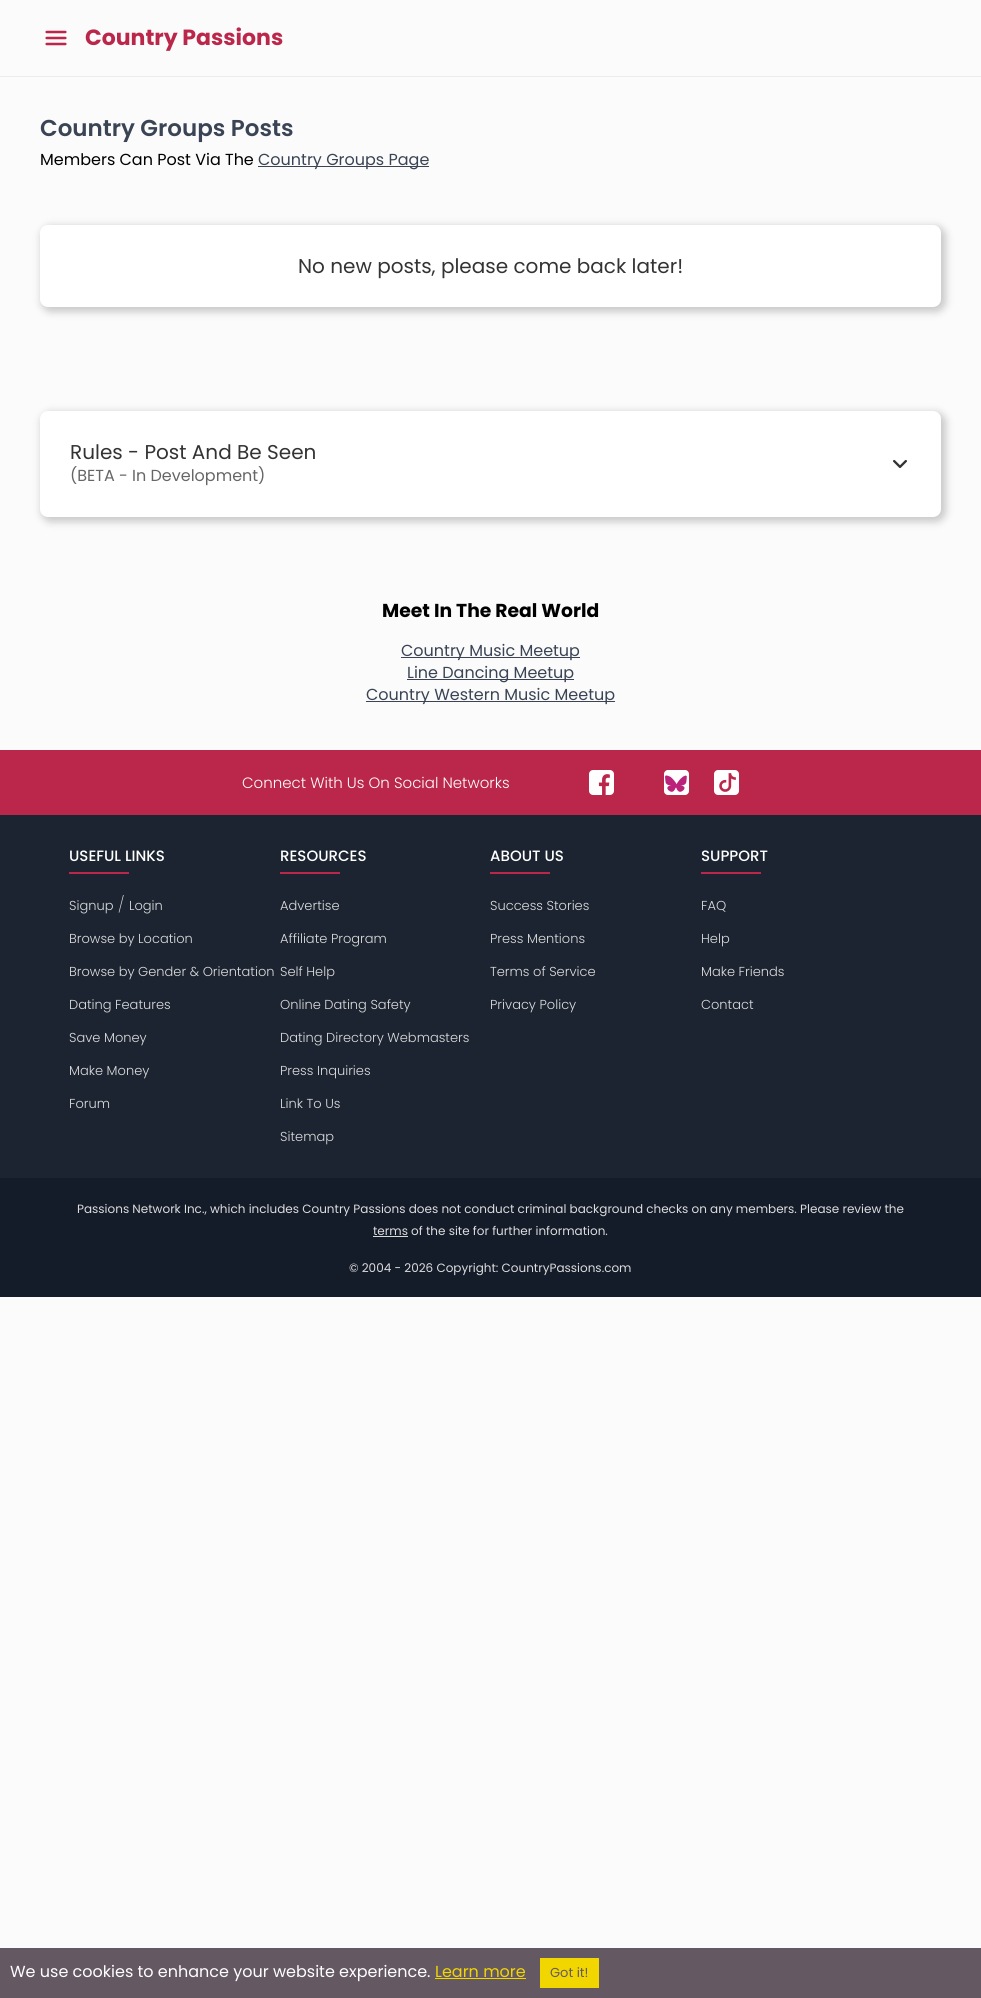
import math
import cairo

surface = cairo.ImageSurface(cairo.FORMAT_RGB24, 981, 1998)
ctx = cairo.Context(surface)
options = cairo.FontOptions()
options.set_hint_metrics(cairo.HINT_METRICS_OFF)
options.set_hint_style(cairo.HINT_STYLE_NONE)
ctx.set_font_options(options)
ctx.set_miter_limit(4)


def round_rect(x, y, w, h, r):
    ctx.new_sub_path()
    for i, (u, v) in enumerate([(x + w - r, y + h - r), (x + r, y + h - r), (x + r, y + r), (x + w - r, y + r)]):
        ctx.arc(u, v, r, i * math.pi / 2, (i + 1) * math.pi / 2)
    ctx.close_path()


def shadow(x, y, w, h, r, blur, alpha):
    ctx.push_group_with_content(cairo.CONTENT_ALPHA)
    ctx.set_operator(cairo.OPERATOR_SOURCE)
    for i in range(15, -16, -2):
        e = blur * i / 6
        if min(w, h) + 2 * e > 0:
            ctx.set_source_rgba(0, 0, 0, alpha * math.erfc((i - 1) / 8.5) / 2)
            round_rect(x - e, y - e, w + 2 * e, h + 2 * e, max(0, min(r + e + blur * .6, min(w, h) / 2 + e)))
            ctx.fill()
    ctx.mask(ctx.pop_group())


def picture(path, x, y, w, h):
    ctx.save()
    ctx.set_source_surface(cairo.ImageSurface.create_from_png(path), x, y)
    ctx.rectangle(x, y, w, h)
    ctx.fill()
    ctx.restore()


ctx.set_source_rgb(0.984, 0.984, 0.984)
ctx.paint()
ctx.set_source_rgb(0.922, 0.922, 0.922)
ctx.rectangle(0, 76, 981, 1)
ctx.fill()
picture("img1.png", 45, 30, 22, 16)
ctx.select_font_face("Poppins", cairo.FONT_SLANT_NORMAL, cairo.FONT_WEIGHT_BOLD)
ctx.set_font_size(22)
ctx.set_source_rgb(0.729, 0.153, 0.29)
ctx.move_to(85, 45)
ctx.show_text("Country Passions")
ctx.select_font_face("Poppins SemiBold")
ctx.set_font_size(23)
ctx.set_source_rgb(0.227, 0.267, 0.329)
ctx.move_to(40, 136)
ctx.show_text("Country Groups Posts")
ctx.select_font_face("Poppins")
ctx.set_font_size(16)
ctx.set_source_rgb(0, 0, 0)
ctx.move_to(40, 165)
ctx.show_text("Members Can Post Via The")
ctx.set_source_rgb(0.227, 0.267, 0.329)
ctx.rectangle(258, 166, 171, 1)
ctx.fill()
ctx.move_to(258, 165)
ctx.show_text("Country Groups Page")
ctx.set_source_rgb(0, 0, 0)
shadow(41, 226, 905, 86, 10, 4, 0.2)
ctx.set_source_rgb(1, 1, 1)
round_rect(40, 225, 901, 82, 8)
ctx.fill()
ctx.set_font_size(20)
ctx.set_source_rgb(0.2, 0.2, 0.2)
ctx.move_to(298, 273)
ctx.show_text("No new posts, please come back later!")
ctx.set_source_rgb(0, 0, 0)
shadow(41, 412, 905, 110, 10, 4, 0.2)
ctx.set_source_rgb(1, 1, 1)
round_rect(40, 411, 901, 106, 8)
ctx.fill()
ctx.set_source_rgb(0.2, 0.2, 0.2)
ctx.move_to(70, 459)
ctx.show_text("Rules - Post And Be Seen")
ctx.set_font_size(16)
ctx.set_source_rgb(0.4, 0.4, 0.4)
ctx.move_to(70, 481)
ctx.show_text("(BETA - In Development)")
picture("img2.png", 893, 459, 14, 9)
ctx.select_font_face("Poppins", cairo.FONT_SLANT_NORMAL, cairo.FONT_WEIGHT_BOLD)
ctx.set_font_size(18.75)
ctx.set_source_rgb(0, 0, 0)
ctx.move_to(382, 617)
ctx.show_text("Meet In The Real World")
ctx.set_source_rgb(0.227, 0.267, 0.329)
ctx.rectangle(401, 657, 179, 1)
ctx.fill()
ctx.select_font_face("Poppins")
ctx.set_font_size(16)
ctx.move_to(401, 656)
ctx.show_text("Country Music Meetup")
ctx.rectangle(407, 679, 167, 1)
ctx.fill()
ctx.move_to(407, 678)
ctx.show_text("Line Dancing Meetup")
ctx.rectangle(366, 701, 249, 1)
ctx.fill()
ctx.move_to(366, 700)
ctx.show_text("Country Western Music Meetup")
ctx.set_source_rgb(0.11, 0.141, 0.192)
ctx.rectangle(0, 815, 981, 363)
ctx.fill()
ctx.set_source_rgb(0.729, 0.153, 0.29)
ctx.rectangle(0, 750, 981, 65)
ctx.fill()
ctx.select_font_face("Poppins Light")
ctx.set_font_size(15)
ctx.set_source_rgb(1, 1, 1)
ctx.move_to(242, 788)
ctx.show_text("Connect With Us On Social Networks")
picture("img3.png", 589, 770, 25, 25)
picture("img4.png", 664, 770, 25, 25)
picture("img5.png", 714, 770, 25, 25)
ctx.select_font_face("Poppins Medium")
ctx.move_to(69, 861)
ctx.show_text("USEFUL LINKS")
ctx.set_source_rgb(0.729, 0.153, 0.29)
ctx.rectangle(69, 872, 60, 2)
ctx.fill()
ctx.select_font_face("Poppins Light")
ctx.set_font_size(13)
ctx.set_source_rgb(0.867, 0.867, 0.867)
ctx.move_to(69, 910)
ctx.show_text("Signup")
ctx.select_font_face("Poppins ExtraLight")
ctx.set_font_size(16)
ctx.move_to(118, 910)
ctx.show_text("/")
ctx.select_font_face("Poppins Light")
ctx.set_font_size(13)
ctx.move_to(129, 910)
ctx.show_text("Login")
ctx.move_to(69, 943)
ctx.show_text("Browse by Location")
ctx.move_to(69, 976)
ctx.show_text("Browse by Gender & Orientation")
ctx.move_to(69, 1009)
ctx.show_text("Dating Features")
ctx.move_to(69, 1042)
ctx.show_text("Save Money")
ctx.move_to(69, 1075)
ctx.show_text("Make Money")
ctx.move_to(69, 1108)
ctx.show_text("Forum")
ctx.select_font_face("Poppins Medium")
ctx.set_font_size(15)
ctx.set_source_rgb(1, 1, 1)
ctx.move_to(280, 861)
ctx.show_text("RESOURCES")
ctx.set_source_rgb(0.729, 0.153, 0.29)
ctx.rectangle(280, 872, 60, 2)
ctx.fill()
ctx.select_font_face("Poppins Light")
ctx.set_font_size(13)
ctx.set_source_rgb(0.867, 0.867, 0.867)
ctx.move_to(280, 910)
ctx.show_text("Advertise")
ctx.move_to(280, 943)
ctx.show_text("Affiliate Program")
ctx.move_to(280, 976)
ctx.show_text("Self Help")
ctx.move_to(280, 1009)
ctx.show_text("Online Dating Safety")
ctx.move_to(280, 1042)
ctx.show_text("Dating Directory Webmasters")
ctx.move_to(280, 1075)
ctx.show_text("Press Inquiries")
ctx.move_to(280, 1108)
ctx.show_text("Link To Us")
ctx.move_to(280, 1141)
ctx.show_text("Sitemap")
ctx.select_font_face("Poppins Medium")
ctx.set_font_size(15)
ctx.set_source_rgb(1, 1, 1)
ctx.move_to(490, 861)
ctx.show_text("ABOUT US")
ctx.set_source_rgb(0.729, 0.153, 0.29)
ctx.rectangle(490, 872, 60, 2)
ctx.fill()
ctx.select_font_face("Poppins Light")
ctx.set_font_size(13)
ctx.set_source_rgb(0.867, 0.867, 0.867)
ctx.move_to(490, 910)
ctx.show_text("Success Stories")
ctx.move_to(490, 943)
ctx.show_text("Press Mentions")
ctx.move_to(490, 976)
ctx.show_text("Terms of Service")
ctx.move_to(490, 1009)
ctx.show_text("Privacy Policy")
ctx.select_font_face("Poppins Medium")
ctx.set_font_size(15)
ctx.set_source_rgb(1, 1, 1)
ctx.move_to(701, 861)
ctx.show_text("SUPPORT")
ctx.set_source_rgb(0.729, 0.153, 0.29)
ctx.rectangle(701, 872, 60, 2)
ctx.fill()
ctx.select_font_face("Poppins Light")
ctx.set_font_size(13)
ctx.set_source_rgb(0.867, 0.867, 0.867)
ctx.move_to(701, 910)
ctx.show_text("FAQ")
ctx.move_to(701, 943)
ctx.show_text("Help")
ctx.move_to(701, 976)
ctx.show_text("Make Friends")
ctx.move_to(701, 1009)
ctx.show_text("Contact")
ctx.set_source_rgb(0.082, 0.106, 0.161)
ctx.rectangle(0, 1178, 981, 119)
ctx.fill()
ctx.select_font_face("Poppins")
ctx.set_font_size(12)
ctx.set_source_rgb(0.867, 0.867, 0.867)
ctx.move_to(77, 1213)
ctx.show_text("Passions Network Inc., which includes Country Passions does not conduct criminal background checks on any members. Please review the")
ctx.move_to(373, 1235)
ctx.show_text("terms of the site for further information.")
ctx.set_source_rgb(0.859, 0.855, 0.855)
ctx.rectangle(373, 1236, 35, 1)
ctx.fill()
ctx.set_source_rgb(0.867, 0.867, 0.867)
ctx.move_to(349, 1272)
ctx.show_text("© 2004 - 2026 Copyright: CountryPassions.com")
ctx.set_source_rgb(0.392, 0.345, 0.384)
ctx.rectangle(0, 1948, 981, 50)
ctx.fill()
ctx.set_font_size(16)
ctx.set_source_rgb(1, 1, 1)
ctx.move_to(10, 1977)
ctx.show_text("We use cookies to enhance your website experience.")
ctx.set_source_rgb(0.945, 0.839, 0)
ctx.move_to(435, 1977)
ctx.show_text("Learn more")
ctx.rectangle(435, 1978, 91, 1)
ctx.fill()
ctx.rectangle(540, 1958, 59, 30)
ctx.fill()
ctx.set_font_size(13)
ctx.set_source_rgb(0.392, 0.345, 0.384)
ctx.move_to(550, 1977)
ctx.show_text("Got it!")
surface.write_to_png("page.png")
